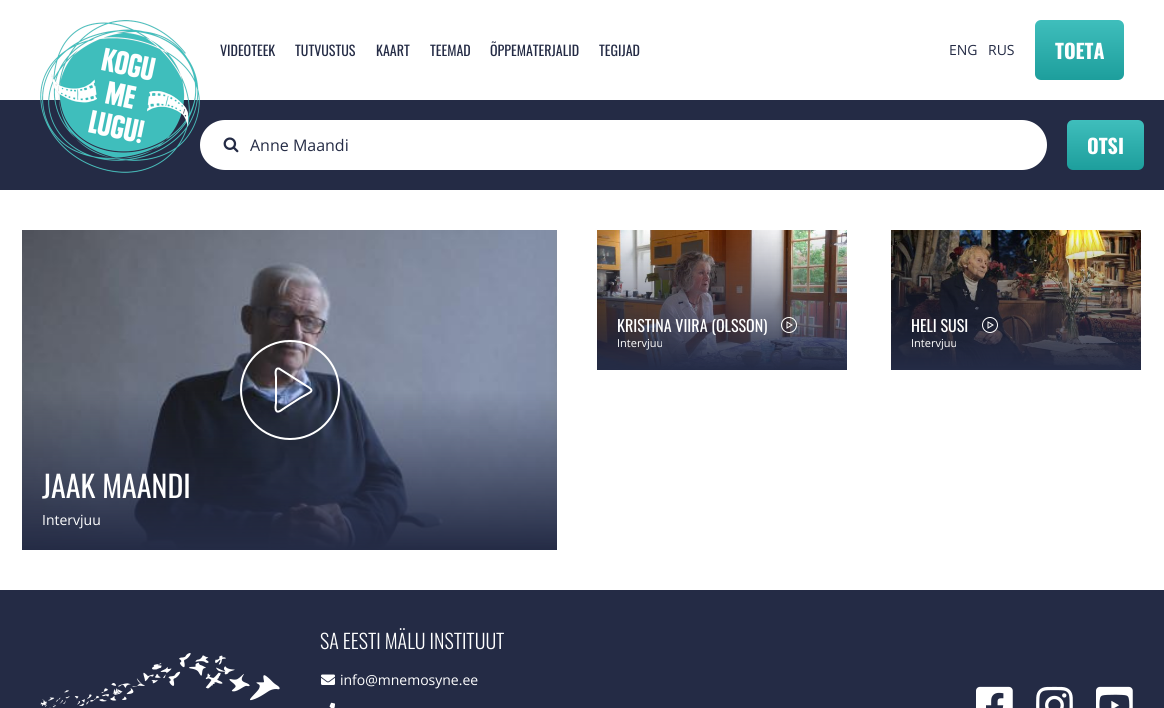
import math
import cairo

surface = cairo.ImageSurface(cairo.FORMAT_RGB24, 1164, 708)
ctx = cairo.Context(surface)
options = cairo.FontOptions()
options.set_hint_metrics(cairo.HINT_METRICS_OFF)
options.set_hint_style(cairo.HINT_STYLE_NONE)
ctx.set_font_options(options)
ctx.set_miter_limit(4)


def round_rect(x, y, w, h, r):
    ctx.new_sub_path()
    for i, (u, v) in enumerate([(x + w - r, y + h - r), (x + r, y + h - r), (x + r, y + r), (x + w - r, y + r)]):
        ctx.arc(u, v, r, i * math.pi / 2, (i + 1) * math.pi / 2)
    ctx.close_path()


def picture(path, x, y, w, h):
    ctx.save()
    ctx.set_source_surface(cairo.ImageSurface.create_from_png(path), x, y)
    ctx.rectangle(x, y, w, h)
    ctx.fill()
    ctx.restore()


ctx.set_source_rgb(1, 1, 1)
ctx.paint()
ctx.set_source_rgb(0.141, 0.169, 0.271)
ctx.rectangle(0, 100, 1164, 90)
ctx.fill()
picture("img1.png", 40, 20, 160, 153)
ctx.select_font_face("Oswald")
ctx.set_font_size(14)
ctx.move_to(220, 56)
ctx.show_text("VIDEOTEEK")
ctx.move_to(295, 56)
ctx.show_text("TUTVUSTUS")
ctx.move_to(376, 56)
ctx.show_text("KAART")
ctx.move_to(430, 56)
ctx.show_text("TEEMAD")
ctx.move_to(490, 56)
ctx.show_text("ÕPPEMATERJALID")
ctx.move_to(599, 56)
ctx.show_text("TEGIJAD")
ctx.select_font_face("Open Sans")
ctx.move_to(949, 55)
ctx.show_text("ENG")
ctx.move_to(988, 55)
ctx.show_text("RUS")
gradient = cairo.LinearGradient(1080, 20, 1080, 80)
gradient.add_color_stop_rgba(0, 0.247, 0.745, 0.737, 1)
gradient.add_color_stop_rgba(1, 0.114, 0.62, 0.612, 1)
ctx.set_source(gradient)
round_rect(1035, 20, 89, 60, 6)
ctx.fill()
ctx.select_font_face("Oswald", cairo.FONT_SLANT_NORMAL, cairo.FONT_WEIGHT_BOLD)
ctx.set_font_size(20)
ctx.set_source_rgb(1, 1, 1)
ctx.move_to(1055, 59)
ctx.show_text("TOETA")
round_rect(200, 120, 847, 50, 25)
ctx.fill()
picture("img2.png", 223, 137, 16, 16)
ctx.select_font_face("Open Sans")
ctx.set_font_size(16)
ctx.set_source_rgb(0.141, 0.169, 0.271)
ctx.move_to(250, 151)
ctx.show_text("Anne Maandi")
gradient = cairo.LinearGradient(1106, 120, 1106, 170)
gradient.add_color_stop_rgba(0, 0.247, 0.745, 0.737, 1)
gradient.add_color_stop_rgba(1, 0.114, 0.62, 0.612, 1)
ctx.set_source(gradient)
round_rect(1067, 120, 77, 50, 6)
ctx.fill()
ctx.select_font_face("Oswald", cairo.FONT_SLANT_NORMAL, cairo.FONT_WEIGHT_BOLD)
ctx.set_font_size(20)
ctx.set_source_rgb(1, 1, 1)
ctx.move_to(1087, 154)
ctx.show_text("OTSI")
picture("img3.png", 597, 230, 250, 140)
ctx.select_font_face("Oswald")
ctx.set_font_size(16)
ctx.move_to(617, 332)
ctx.show_text("KRISTINA VIIRA (OLSSON)")
ctx.new_path()
ctx.arc(789, 325, 7.5, 0, 2 * math.pi)
ctx.set_line_width(1)
ctx.stroke()
ctx.new_path()
ctx.move_to(787, 322)
ctx.line_to(787, 328)
ctx.line_to(792, 325)
ctx.close_path()
ctx.stroke()
ctx.select_font_face("Open Sans")
ctx.set_font_size(11)
ctx.move_to(617, 347)
ctx.show_text("Intervjuu")
picture("img4.png", 891, 230, 250, 140)
ctx.select_font_face("Oswald")
ctx.set_font_size(16)
ctx.move_to(911, 332)
ctx.show_text("HELI SUSI")
ctx.new_path()
ctx.arc(990, 325, 7.5, 0, 2 * math.pi)
ctx.stroke()
ctx.new_path()
ctx.move_to(988, 322)
ctx.line_to(988, 328)
ctx.line_to(993, 325)
ctx.close_path()
ctx.stroke()
ctx.select_font_face("Open Sans")
ctx.set_font_size(11)
ctx.move_to(911, 347)
ctx.show_text("Intervjuu")
picture("img5.png", 22, 230, 535, 320)
ctx.arc(290, 390, 49, 0, 2 * math.pi)
ctx.set_line_width(2)
ctx.stroke()
ctx.new_path()
ctx.move_to(279, 368.5)
ctx.line_to(277.5, 368.5)
ctx.curve_to(274.5, 369.5, 276, 376.5, 276, 377)
ctx.line_to(276, 403)
ctx.curve_to(276, 403, 274.5, 410, 277, 411.5)
ctx.curve_to(279.5, 412.5, 284, 408, 284.5, 408)
ctx.line_to(300, 398)
ctx.curve_to(312, 391, 316, 391.5, 305, 385)
ctx.close_path()
ctx.stroke()
ctx.select_font_face("Oswald")
ctx.set_font_size(30)
ctx.move_to(42, 498)
ctx.show_text("JAAK MAANDI")
ctx.select_font_face("Open Sans")
ctx.set_font_size(14)
ctx.move_to(42, 525)
ctx.show_text("Intervjuu")
ctx.set_source_rgb(0.141, 0.169, 0.271)
ctx.rectangle(0, 590, 1164, 118)
ctx.fill()
picture("img6.png", 40, 653, 240, 55)
ctx.select_font_face("Oswald Light")
ctx.set_font_size(20)
ctx.set_source_rgb(1, 1, 1)
ctx.move_to(320, 649)
ctx.show_text("SA EESTI MÄLU INSTITUUT")
picture("img7.png", 321, 674, 14, 11)
ctx.select_font_face("Open Sans")
ctx.set_font_size(14)
ctx.move_to(340, 685)
ctx.show_text("info@mnemosyne.ee")
picture("img8.png", 329, 702, 6, 6)
picture("img9.png", 976, 686, 37, 22)
picture("img10.png", 1036, 686, 37, 22)
picture("img11.png", 1096, 686, 37, 22)
surface.write_to_png("page.png")
